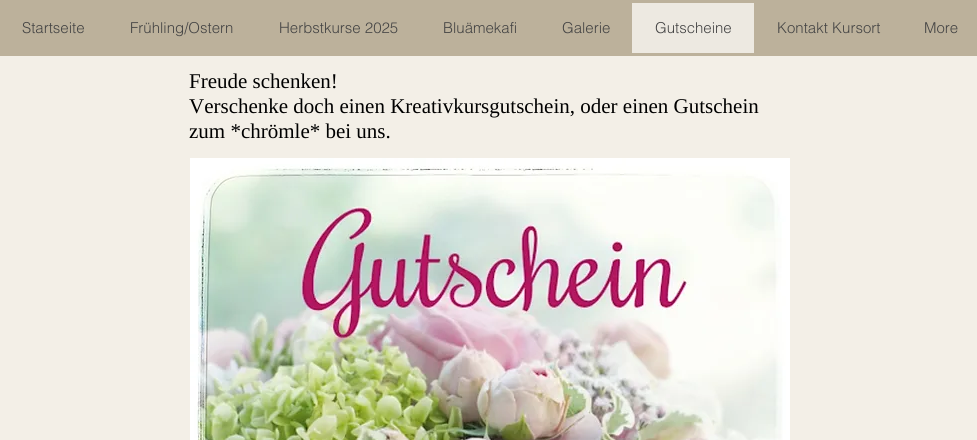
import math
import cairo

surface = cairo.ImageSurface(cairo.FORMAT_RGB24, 977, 440)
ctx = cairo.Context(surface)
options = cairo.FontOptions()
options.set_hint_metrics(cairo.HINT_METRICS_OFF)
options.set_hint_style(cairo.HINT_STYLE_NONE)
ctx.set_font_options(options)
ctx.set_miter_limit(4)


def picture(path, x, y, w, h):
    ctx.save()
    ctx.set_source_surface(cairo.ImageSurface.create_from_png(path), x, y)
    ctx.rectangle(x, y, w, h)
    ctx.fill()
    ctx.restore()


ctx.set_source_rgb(0.737, 0.694, 0.608)
ctx.paint()
ctx.select_font_face("helvetica Light")
ctx.set_font_size(15)
ctx.set_source_rgb(0.267, 0.267, 0.267)
ctx.move_to(22, 33)
ctx.show_text("Startseite")
ctx.move_to(130, 33)
ctx.show_text("Frühling/Ostern")
ctx.move_to(279, 33)
ctx.show_text("Herbstkurse 2025")
ctx.move_to(443, 33)
ctx.show_text("Bluämekafi")
ctx.move_to(562, 33)
ctx.show_text("Galerie")
ctx.set_source_rgb(0.929, 0.914, 0.882)
ctx.rectangle(632, 3, 122, 50)
ctx.fill()
ctx.set_source_rgb(0.267, 0.267, 0.267)
ctx.move_to(655, 33)
ctx.show_text("Gutscheine")
ctx.move_to(777, 33)
ctx.show_text("Kontakt Kursort")
ctx.move_to(924, 33)
ctx.show_text("More")
ctx.set_source_rgb(0.953, 0.937, 0.906)
ctx.rectangle(0, 56, 977, 384)
ctx.fill()
ctx.select_font_face("Liberation Serif")
ctx.set_font_size(21)
ctx.set_source_rgb(0, 0, 0)
ctx.move_to(189, 88)
ctx.show_text("Freude schenken!")
ctx.move_to(189, 113)
ctx.show_text("Verschenke doch einen Kreativkursgutschein, oder einen Gutschein")
ctx.move_to(189, 138)
ctx.show_text("zum *chrömle* bei uns.")
picture("img1.png", 190, 158, 600, 282)
surface.write_to_png("page.png")
